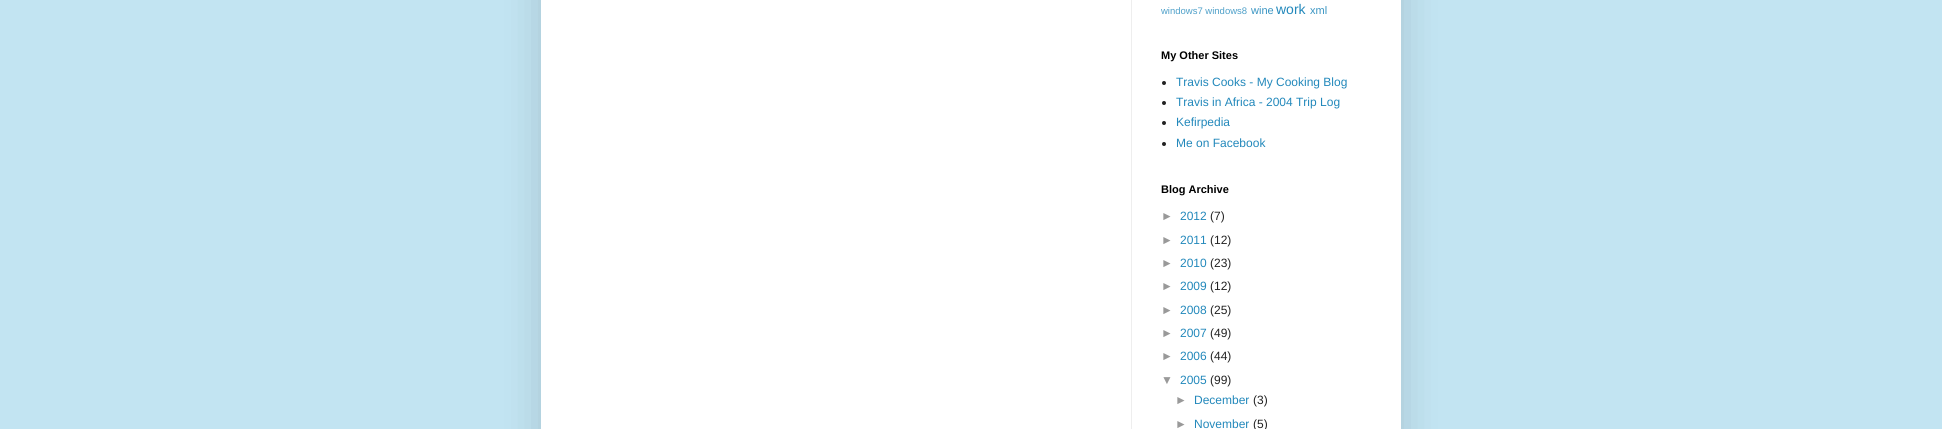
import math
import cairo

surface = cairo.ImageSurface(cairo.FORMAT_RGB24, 1942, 429)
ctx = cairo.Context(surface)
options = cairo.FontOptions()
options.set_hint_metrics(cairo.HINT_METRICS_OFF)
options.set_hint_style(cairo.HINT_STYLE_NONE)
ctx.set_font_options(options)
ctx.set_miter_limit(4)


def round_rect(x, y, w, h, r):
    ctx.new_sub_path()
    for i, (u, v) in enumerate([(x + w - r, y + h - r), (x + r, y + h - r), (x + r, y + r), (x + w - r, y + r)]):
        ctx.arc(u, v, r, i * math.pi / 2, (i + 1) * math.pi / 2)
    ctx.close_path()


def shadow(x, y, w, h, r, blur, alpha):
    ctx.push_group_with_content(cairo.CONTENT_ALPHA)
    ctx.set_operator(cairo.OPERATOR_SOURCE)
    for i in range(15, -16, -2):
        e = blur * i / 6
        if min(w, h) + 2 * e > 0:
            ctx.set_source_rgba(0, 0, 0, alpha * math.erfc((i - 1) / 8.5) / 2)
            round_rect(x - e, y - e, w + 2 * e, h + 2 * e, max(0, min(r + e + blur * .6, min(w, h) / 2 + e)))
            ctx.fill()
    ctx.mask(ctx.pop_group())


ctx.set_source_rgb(0.761, 0.894, 0.949)
ctx.paint()
ctx.set_source_rgb(0, 0, 0)
shadow(541, -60, 860, 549, 0, 20, 0.15)
ctx.set_source_rgb(1, 1, 1)
ctx.rectangle(541, 0, 860, 429)
ctx.fill()
ctx.set_source_rgb(0.933, 0.933, 0.933)
ctx.rectangle(1131, 0, 1, 429)
ctx.fill()
ctx.select_font_face("Liberation Sans")
ctx.set_font_size(9.5)
ctx.set_source_rgb(0.306, 0.627, 0.788)
ctx.move_to(1161, 14)
ctx.show_text("windows7 windows8")
ctx.set_font_size(11)
ctx.set_source_rgb(0.22, 0.58, 0.761)
ctx.move_to(1251, 14)
ctx.show_text("wine")
ctx.set_font_size(14)
ctx.set_source_rgb(0.133, 0.533, 0.733)
ctx.move_to(1276, 14)
ctx.show_text("work")
ctx.set_font_size(11)
ctx.set_source_rgb(0.22, 0.58, 0.761)
ctx.move_to(1310, 14)
ctx.show_text("xml")
ctx.select_font_face("Liberation Sans", cairo.FONT_SLANT_NORMAL, cairo.FONT_WEIGHT_BOLD)
ctx.set_source_rgb(0, 0, 0)
ctx.move_to(1161, 59)
ctx.show_text("My Other Sites")
ctx.set_source_rgb(0.133, 0.133, 0.133)
ctx.new_path()
ctx.arc(1164, 83, 2, 0, 2 * math.pi)
ctx.fill()
ctx.select_font_face("Liberation Sans")
ctx.set_font_size(12)
ctx.set_source_rgb(0.133, 0.533, 0.733)
ctx.move_to(1176, 86)
ctx.show_text("Travis Cooks - My Cooking Blog")
ctx.set_source_rgb(0.133, 0.133, 0.133)
ctx.new_path()
ctx.arc(1164, 103, 2, 0, 2 * math.pi)
ctx.fill()
ctx.set_source_rgb(0.133, 0.533, 0.733)
ctx.move_to(1176, 106)
ctx.show_text("Travis in Africa - 2004 Trip Log")
ctx.set_source_rgb(0.133, 0.133, 0.133)
ctx.new_path()
ctx.arc(1164, 123, 2, 0, 2 * math.pi)
ctx.fill()
ctx.set_source_rgb(0.133, 0.533, 0.733)
ctx.move_to(1176, 126)
ctx.show_text("Kefirpedia")
ctx.set_source_rgb(0.133, 0.133, 0.133)
ctx.new_path()
ctx.arc(1164, 144, 2, 0, 2 * math.pi)
ctx.fill()
ctx.set_source_rgb(0.133, 0.533, 0.733)
ctx.move_to(1176, 147)
ctx.show_text("Me on Facebook")
ctx.select_font_face("Liberation Sans", cairo.FONT_SLANT_NORMAL, cairo.FONT_WEIGHT_BOLD)
ctx.set_font_size(11)
ctx.set_source_rgb(0, 0, 0)
ctx.move_to(1161, 193)
ctx.show_text("Blog Archive")
ctx.select_font_face("Liberation Sans")
ctx.set_font_size(12)
ctx.set_source_rgb(0.6, 0.6, 0.6)
ctx.move_to(1161, 220)
ctx.show_text("►")
ctx.set_source_rgb(0.133, 0.533, 0.733)
ctx.move_to(1180, 220)
ctx.show_text("2012")
ctx.set_source_rgb(0.133, 0.133, 0.133)
ctx.move_to(1210, 220)
ctx.show_text("(7)")
ctx.set_source_rgb(0.6, 0.6, 0.6)
ctx.move_to(1161, 244)
ctx.show_text("►")
ctx.set_source_rgb(0.133, 0.533, 0.733)
ctx.move_to(1180, 244)
ctx.show_text("2011")
ctx.set_source_rgb(0.133, 0.133, 0.133)
ctx.move_to(1210, 244)
ctx.show_text("(12)")
ctx.set_source_rgb(0.6, 0.6, 0.6)
ctx.move_to(1161, 267)
ctx.show_text("►")
ctx.set_source_rgb(0.133, 0.533, 0.733)
ctx.move_to(1180, 267)
ctx.show_text("2010")
ctx.set_source_rgb(0.133, 0.133, 0.133)
ctx.move_to(1210, 267)
ctx.show_text("(23)")
ctx.set_source_rgb(0.6, 0.6, 0.6)
ctx.move_to(1161, 290)
ctx.show_text("►")
ctx.set_source_rgb(0.133, 0.533, 0.733)
ctx.move_to(1180, 290)
ctx.show_text("2009")
ctx.set_source_rgb(0.133, 0.133, 0.133)
ctx.move_to(1210, 290)
ctx.show_text("(12)")
ctx.set_source_rgb(0.6, 0.6, 0.6)
ctx.move_to(1161, 314)
ctx.show_text("►")
ctx.set_source_rgb(0.133, 0.533, 0.733)
ctx.move_to(1180, 314)
ctx.show_text("2008")
ctx.set_source_rgb(0.133, 0.133, 0.133)
ctx.move_to(1210, 314)
ctx.show_text("(25)")
ctx.set_source_rgb(0.6, 0.6, 0.6)
ctx.move_to(1161, 337)
ctx.show_text("►")
ctx.set_source_rgb(0.133, 0.533, 0.733)
ctx.move_to(1180, 337)
ctx.show_text("2007")
ctx.set_source_rgb(0.133, 0.133, 0.133)
ctx.move_to(1210, 337)
ctx.show_text("(49)")
ctx.set_source_rgb(0.6, 0.6, 0.6)
ctx.move_to(1161, 360)
ctx.show_text("►")
ctx.set_source_rgb(0.133, 0.533, 0.733)
ctx.move_to(1180, 360)
ctx.show_text("2006")
ctx.set_source_rgb(0.133, 0.133, 0.133)
ctx.move_to(1210, 360)
ctx.show_text("(44)")
ctx.set_source_rgb(0.6, 0.6, 0.6)
ctx.move_to(1161, 384)
ctx.show_text("▼")
ctx.set_source_rgb(0.133, 0.533, 0.733)
ctx.move_to(1180, 384)
ctx.show_text("2005")
ctx.set_source_rgb(0.133, 0.133, 0.133)
ctx.move_to(1210, 384)
ctx.show_text("(99)")
ctx.set_source_rgb(0.6, 0.6, 0.6)
ctx.move_to(1175, 404)
ctx.show_text("►")
ctx.set_source_rgb(0.133, 0.533, 0.733)
ctx.move_to(1194, 404)
ctx.show_text("December")
ctx.set_source_rgb(0.133, 0.133, 0.133)
ctx.move_to(1253, 404)
ctx.show_text("(3)")
ctx.set_source_rgb(0.6, 0.6, 0.6)
ctx.move_to(1175, 428)
ctx.show_text("►")
ctx.set_source_rgb(0.133, 0.533, 0.733)
ctx.move_to(1194, 428)
ctx.show_text("November")
ctx.set_source_rgb(0.133, 0.133, 0.133)
ctx.move_to(1253, 428)
ctx.show_text("(5)")
surface.write_to_png("page.png")
